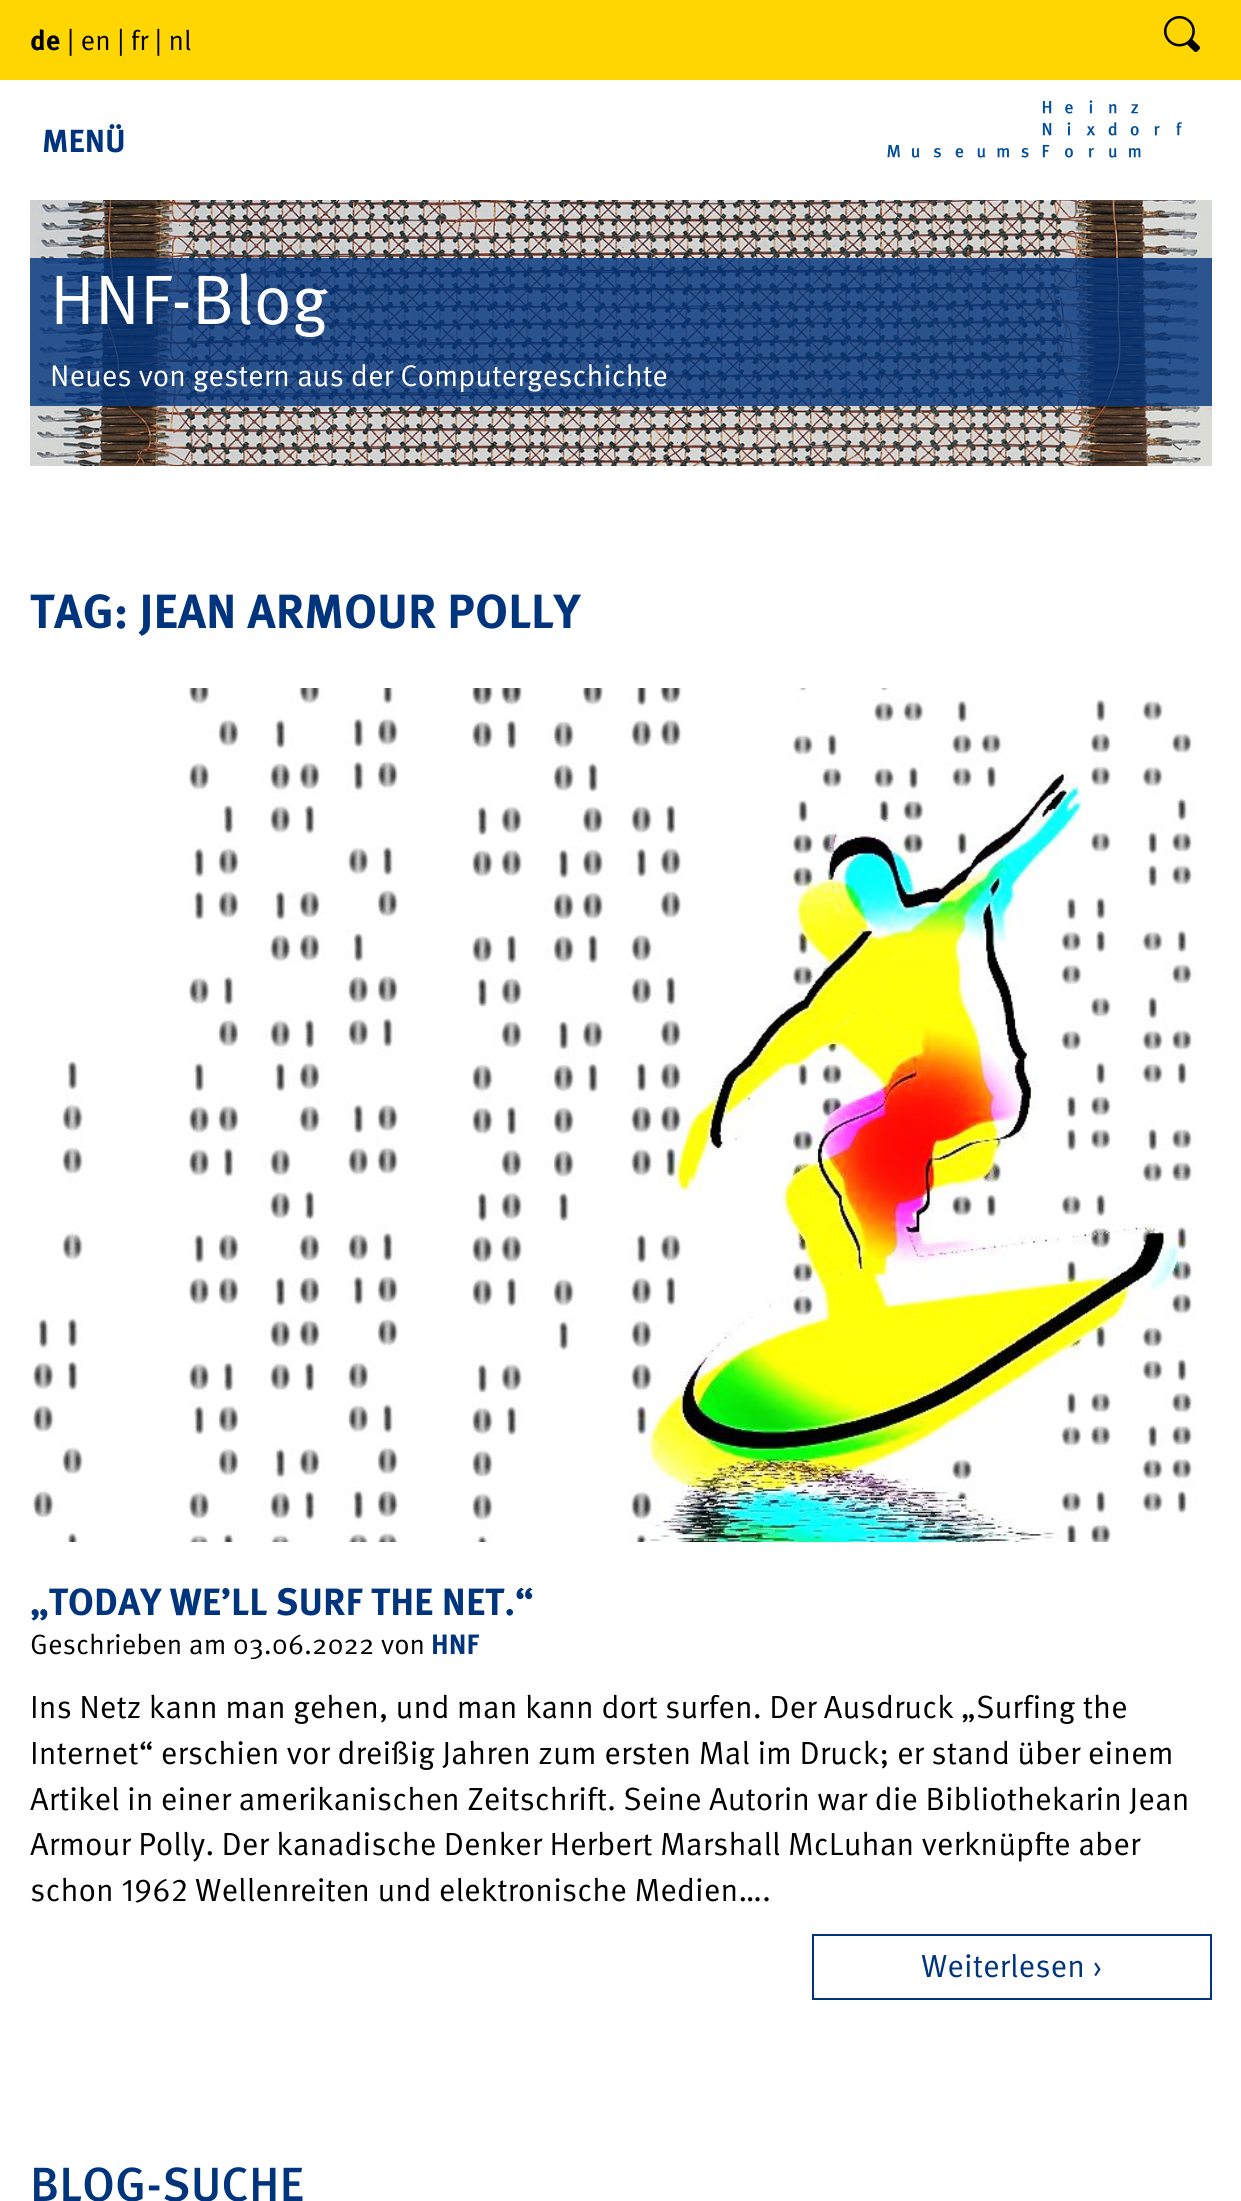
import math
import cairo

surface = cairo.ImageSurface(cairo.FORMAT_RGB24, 1241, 2201)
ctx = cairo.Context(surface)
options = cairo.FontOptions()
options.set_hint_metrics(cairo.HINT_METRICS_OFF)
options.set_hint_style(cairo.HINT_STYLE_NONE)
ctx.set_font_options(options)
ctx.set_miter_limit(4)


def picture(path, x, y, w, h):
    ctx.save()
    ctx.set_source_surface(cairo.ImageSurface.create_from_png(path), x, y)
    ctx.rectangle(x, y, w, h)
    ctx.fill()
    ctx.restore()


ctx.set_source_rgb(1, 1, 1)
ctx.paint()
ctx.set_source_rgb(1, 0.839, 0.004)
ctx.rectangle(0, 0, 1241, 80)
ctx.fill()
ctx.select_font_face("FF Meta", cairo.FONT_SLANT_NORMAL, cairo.FONT_WEIGHT_BOLD)
ctx.set_font_size(28)
ctx.set_source_rgb(0, 0, 0)
ctx.move_to(30, 50)
ctx.show_text("de")
ctx.select_font_face("FF Meta")
ctx.move_to(67, 50)
ctx.show_text("| en | fr | nl")
picture("img1.png", 1164, 16, 36, 36)
ctx.select_font_face("FF Meta", cairo.FONT_SLANT_NORMAL, cairo.FONT_WEIGHT_BOLD)
ctx.set_font_size(32)
ctx.set_source_rgb(0, 0.204, 0.49)
ctx.move_to(42, 152)
ctx.show_text("MENÜ")
picture("img2.png", 887, 100, 295, 58)
picture("img3.png", 30, 200, 1182, 266)
ctx.set_source_rgba(0, 0.204, 0.49, 0.8)
ctx.rectangle(30, 258, 1182, 148)
ctx.fill()
ctx.select_font_face("FF Meta")
ctx.set_font_size(70)
ctx.set_source_rgb(1, 1, 1)
ctx.move_to(50, 324)
ctx.show_text("HNF-Blog")
ctx.set_font_size(30)
ctx.move_to(50, 386)
ctx.show_text("Neues von gestern aus der Computergeschichte")
ctx.select_font_face("FF Meta", cairo.FONT_SLANT_NORMAL, cairo.FONT_WEIGHT_BOLD)
ctx.set_font_size(48)
ctx.set_source_rgb(0, 0.204, 0.49)
ctx.move_to(30, 628)
ctx.show_text("TAG: JEAN ARMOUR POLLY")
picture("img4.png", 32, 688, 1164, 854)
ctx.set_font_size(38)
ctx.move_to(30, 1615)
ctx.show_text("„TODAY WE’LL SURF THE NET.“")
ctx.select_font_face("FF Meta")
ctx.set_font_size(28)
ctx.set_source_rgb(0, 0, 0)
ctx.move_to(30, 1654)
ctx.show_text("Geschrieben am 03.06.2022 von")
ctx.select_font_face("FF Meta", cairo.FONT_SLANT_NORMAL, cairo.FONT_WEIGHT_BOLD)
ctx.set_source_rgb(0, 0.204, 0.49)
ctx.move_to(431, 1654)
ctx.show_text("HNF")
ctx.select_font_face("FF Meta")
ctx.set_font_size(32)
ctx.set_source_rgb(0, 0, 0)
ctx.move_to(30, 1718)
ctx.show_text("Ins Netz kann man gehen, und man kann dort surfen. Der Ausdruck „Surfing the")
ctx.move_to(30, 1764)
ctx.show_text("Internet“ erschien vor dreißig Jahren zum ersten Mal im Druck; er stand über einem")
ctx.move_to(30, 1810)
ctx.show_text("Artikel in einer amerikanischen Zeitschrift. Seine Autorin war die Bibliothekarin Jean")
ctx.move_to(30, 1855)
ctx.show_text("Armour Polly. Der kanadische Denker Herbert Marshall McLuhan verknüpfte aber")
ctx.select_font_face("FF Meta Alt")
ctx.move_to(30, 1901)
ctx.show_text("schon 1962 Wellenreiten und elektronische Medien….")
ctx.rectangle(813, 1935, 398, 64)
ctx.set_source_rgb(0, 0.204, 0.49)
ctx.stroke()
ctx.select_font_face("FF Meta")
ctx.move_to(921, 1977)
ctx.show_text("Weiterlesen ›")
ctx.select_font_face("FF Meta Medium")
ctx.set_font_size(48)
ctx.move_to(30, 2201)
ctx.show_text("BLOG-SUCHE")
surface.write_to_png("page.png")
